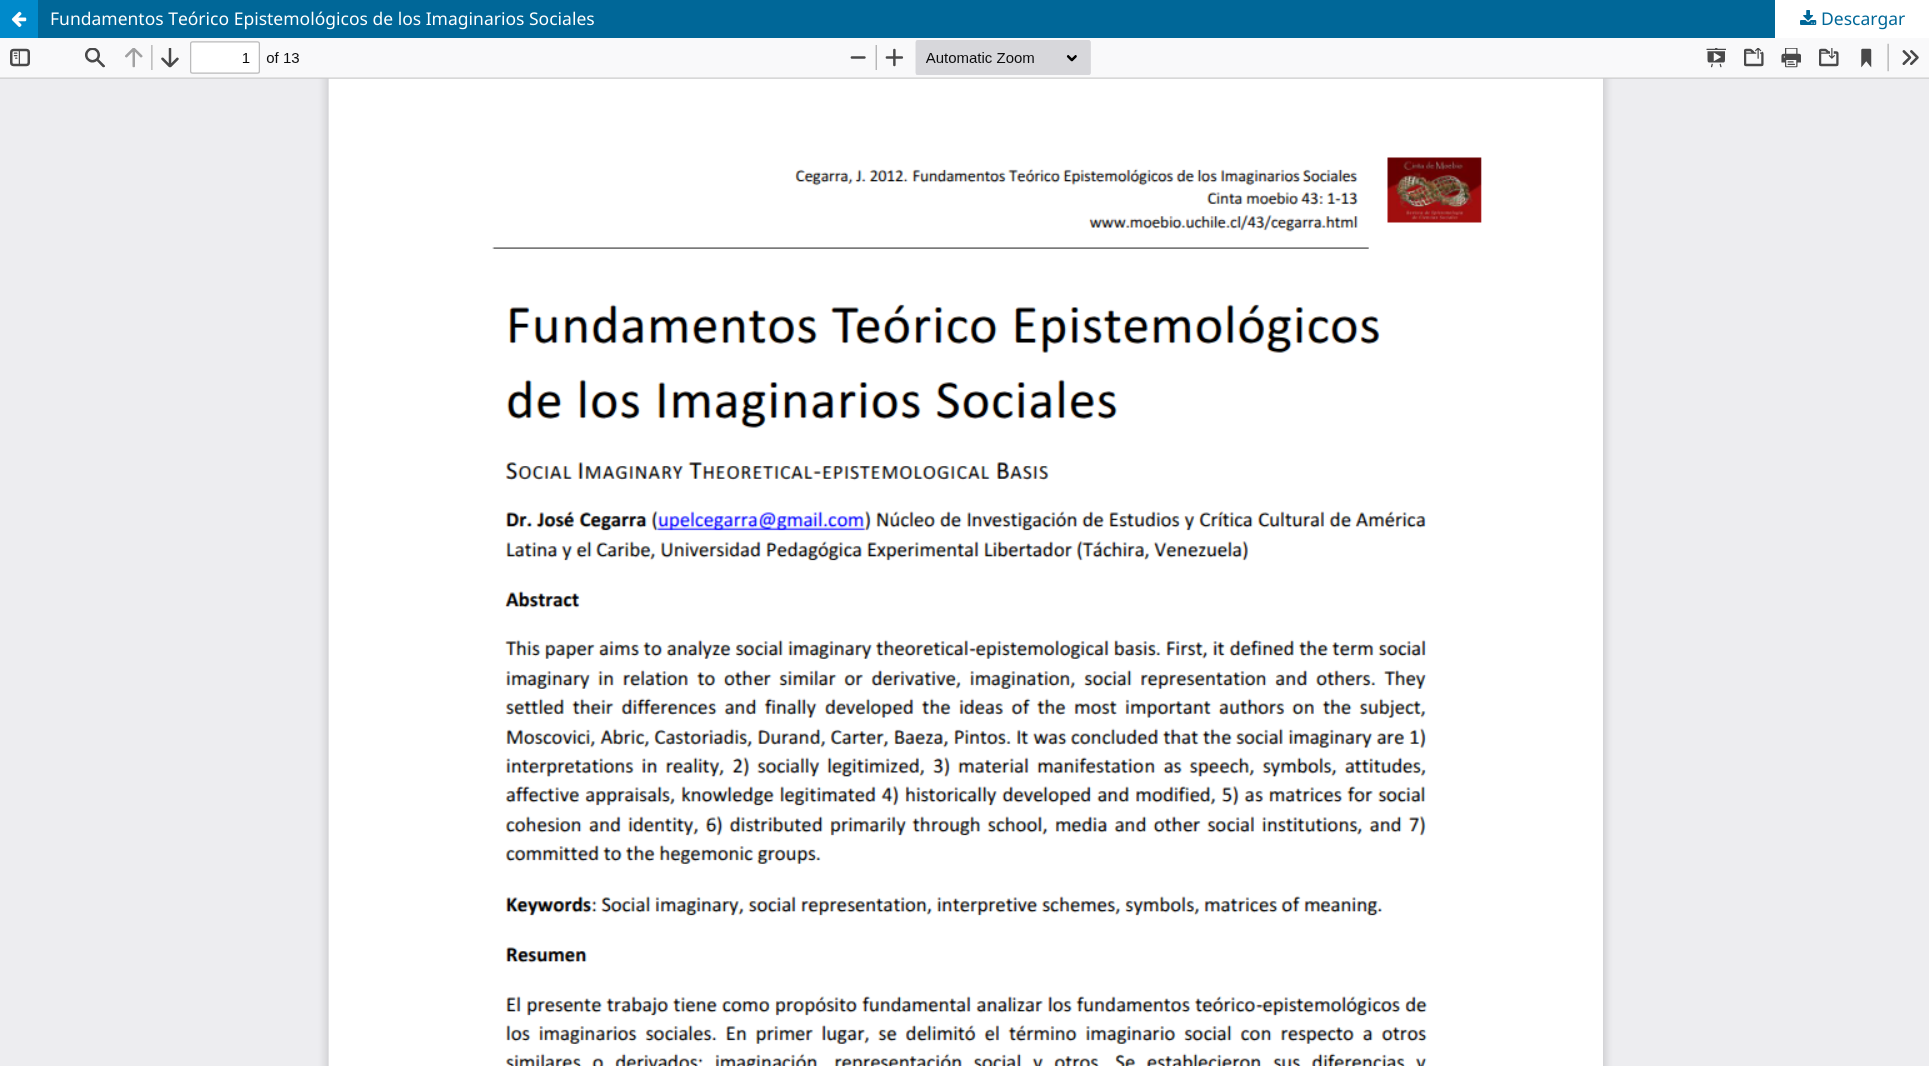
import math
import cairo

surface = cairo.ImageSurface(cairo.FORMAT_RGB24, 1929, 1066)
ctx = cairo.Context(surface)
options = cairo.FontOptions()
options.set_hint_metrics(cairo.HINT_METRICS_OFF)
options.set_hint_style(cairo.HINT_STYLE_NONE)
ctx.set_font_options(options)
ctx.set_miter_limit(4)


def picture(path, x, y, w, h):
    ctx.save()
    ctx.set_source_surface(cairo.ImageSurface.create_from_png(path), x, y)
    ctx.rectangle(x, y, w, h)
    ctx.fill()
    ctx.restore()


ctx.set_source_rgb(1, 1, 1)
ctx.paint()
ctx.set_source_rgb(0, 0.404, 0.596)
ctx.rectangle(38, 0, 1737, 38)
ctx.fill()
ctx.set_source_rgb(0, 0.541, 0.796)
ctx.rectangle(0, 0, 38, 38)
ctx.fill()
picture("img1.png", 11, 11, 16, 16)
ctx.select_font_face("Noto Sans")
ctx.set_font_size(17.5)
ctx.set_source_rgb(1, 1, 1)
ctx.move_to(50, 25)
ctx.show_text("Fundamentos Teórico Epistemológicos de los Imaginarios Sociales")
picture("img2.png", 1800, 10, 17, 15)
ctx.set_source_rgb(0, 0.404, 0.596)
ctx.move_to(1821, 25)
ctx.show_text("Descargar")
picture("img3.png", 0, 38, 1929, 1028)
surface.write_to_png("page.png")
